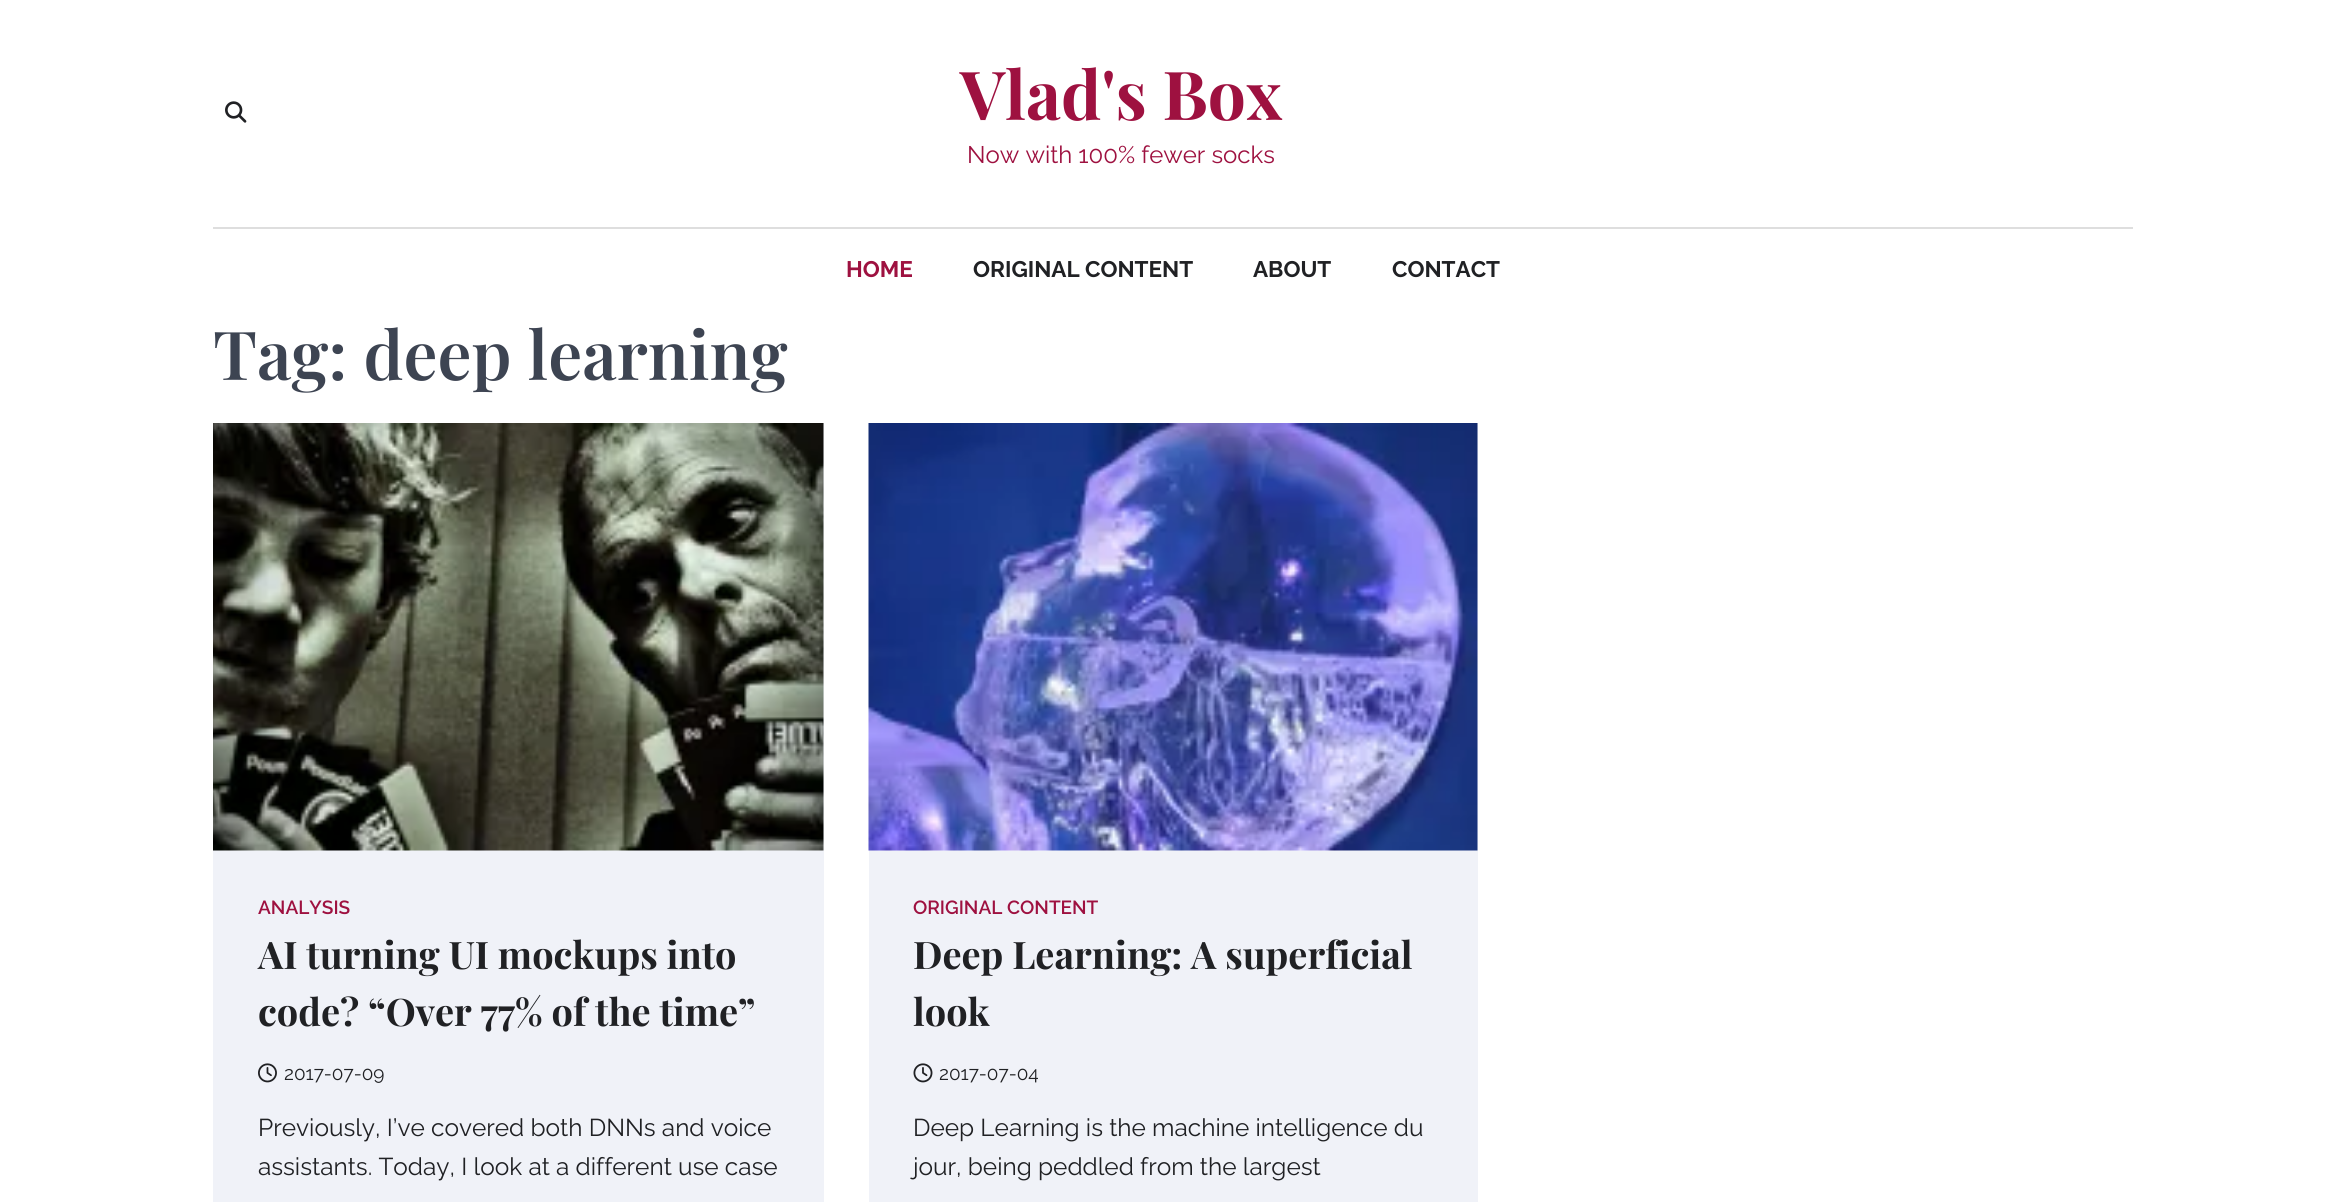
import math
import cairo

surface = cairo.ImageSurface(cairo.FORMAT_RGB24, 2345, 1202)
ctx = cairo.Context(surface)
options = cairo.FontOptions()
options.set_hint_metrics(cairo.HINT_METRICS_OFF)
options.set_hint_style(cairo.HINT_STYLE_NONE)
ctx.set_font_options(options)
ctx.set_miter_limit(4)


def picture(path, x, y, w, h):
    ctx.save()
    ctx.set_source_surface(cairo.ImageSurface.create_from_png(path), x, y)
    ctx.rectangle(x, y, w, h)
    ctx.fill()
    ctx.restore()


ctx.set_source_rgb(1, 1, 1)
ctx.paint()
picture("img1.png", 225, 101, 22, 22)
ctx.select_font_face("Playfair Display", cairo.FONT_SLANT_NORMAL, cairo.FONT_WEIGHT_BOLD)
ctx.set_font_size(67.5)
ctx.set_source_rgb(0.62, 0.067, 0.251)
ctx.move_to(960, 120)
ctx.show_text("Vlad's Box")
ctx.select_font_face("Raleway")
ctx.set_font_size(24)
ctx.move_to(967, 163)
ctx.show_text("Now with 100% fewer socks")
ctx.set_source_rgb(0.871, 0.871, 0.871)
ctx.rectangle(213, 227, 1920, 2)
ctx.fill()
ctx.select_font_face("Raleway", cairo.FONT_SLANT_NORMAL, cairo.FONT_WEIGHT_BOLD)
ctx.set_font_size(22.5)
ctx.set_source_rgb(0.62, 0.067, 0.251)
ctx.move_to(846, 277)
ctx.show_text("HOME")
ctx.set_source_rgb(0.125, 0.129, 0.141)
ctx.move_to(973, 277)
ctx.show_text("ORIGINAL CONTENT")
ctx.move_to(1253, 277)
ctx.show_text("ABOUT")
ctx.move_to(1392, 277)
ctx.show_text("CONTACT")
ctx.select_font_face("Playfair Display SemiBold")
ctx.set_font_size(67.5)
ctx.set_source_rgb(0.239, 0.267, 0.322)
ctx.move_to(213, 380)
ctx.show_text("Tag: deep learning")
ctx.set_source_rgb(0.941, 0.949, 0.969)
ctx.rectangle(213, 423, 611, 779)
ctx.fill()
picture("img2.png", 213, 423, 611, 428)
ctx.select_font_face("Raleway SemiBold")
ctx.set_font_size(19)
ctx.set_source_rgb(0.62, 0.067, 0.251)
ctx.move_to(258, 914)
ctx.show_text("ANALYSIS")
ctx.select_font_face("Playfair Display", cairo.FONT_SLANT_NORMAL, cairo.FONT_WEIGHT_BOLD)
ctx.set_font_size(37.9)
ctx.set_source_rgb(0.125, 0.129, 0.141)
ctx.move_to(258, 969)
ctx.show_text("AI turning UI mockups into")
ctx.move_to(258, 1026)
ctx.show_text("code? “Over 77% of the time”")
picture("img3.png", 258, 1063, 19, 20)
ctx.select_font_face("Raleway")
ctx.set_font_size(19)
ctx.move_to(284, 1080)
ctx.show_text("2017-07-09")
ctx.set_font_size(24.4)
ctx.move_to(258, 1136)
ctx.show_text("Previously, I’ve covered both DNNs and voice")
ctx.move_to(258, 1175)
ctx.show_text("assistants. Today, I look at a different use case")
ctx.set_source_rgb(0.941, 0.949, 0.969)
ctx.rectangle(869, 423, 609, 779)
ctx.fill()
picture("img4.png", 868, 423, 610, 428)
ctx.select_font_face("Raleway SemiBold")
ctx.set_font_size(19)
ctx.set_source_rgb(0.62, 0.067, 0.251)
ctx.move_to(913, 914)
ctx.show_text("ORIGINAL CONTENT")
ctx.select_font_face("Playfair Display", cairo.FONT_SLANT_NORMAL, cairo.FONT_WEIGHT_BOLD)
ctx.set_font_size(37.9)
ctx.set_source_rgb(0.125, 0.129, 0.141)
ctx.move_to(913, 969)
ctx.show_text("Deep Learning: A superficial")
ctx.move_to(913, 1026)
ctx.show_text("look")
picture("img5.png", 913, 1063, 20, 20)
ctx.select_font_face("Raleway")
ctx.set_font_size(19)
ctx.move_to(939, 1080)
ctx.show_text("2017-07-04")
ctx.set_font_size(24.4)
ctx.move_to(913, 1136)
ctx.show_text("Deep Learning is the machine intelligence du")
ctx.move_to(913, 1175)
ctx.show_text("jour, being peddled from the largest")
surface.write_to_png("page.png")
